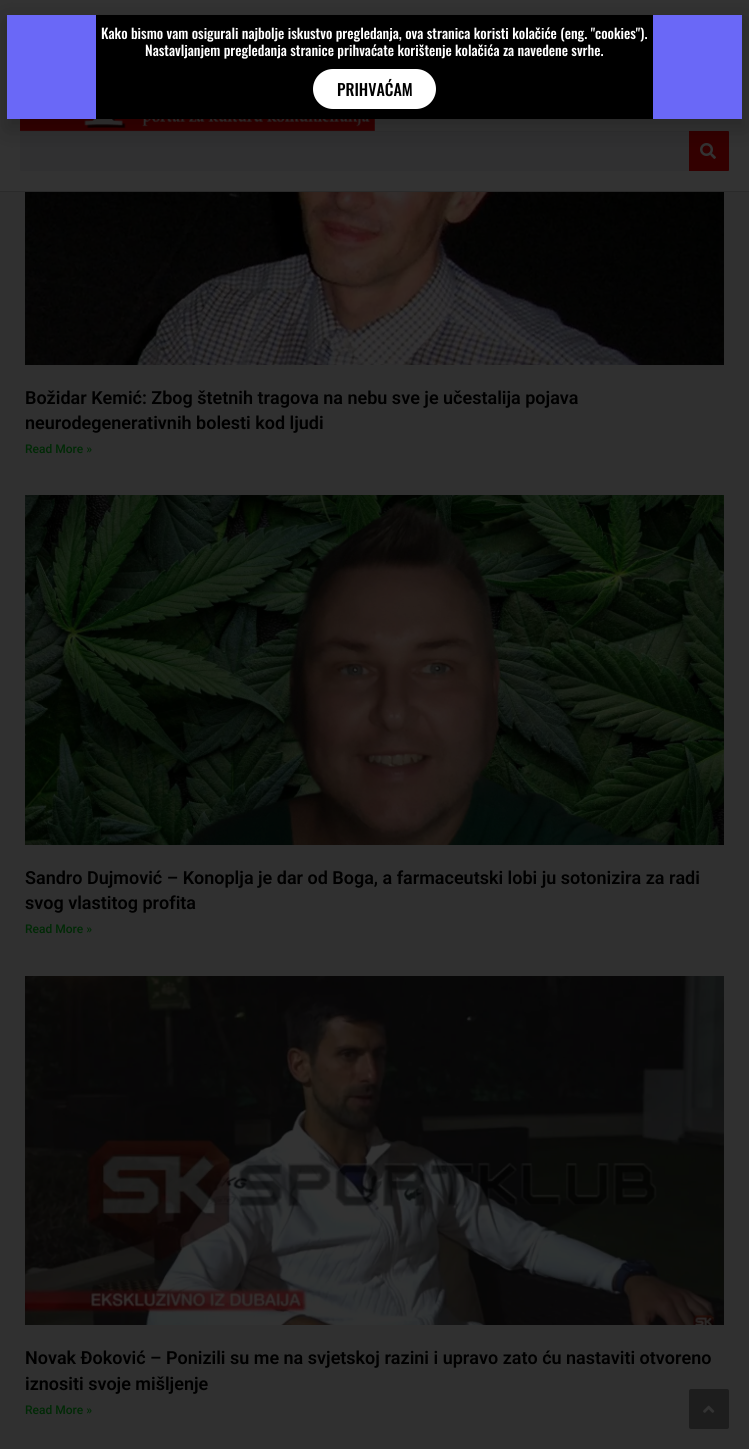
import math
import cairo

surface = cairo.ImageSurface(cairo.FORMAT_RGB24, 749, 1449)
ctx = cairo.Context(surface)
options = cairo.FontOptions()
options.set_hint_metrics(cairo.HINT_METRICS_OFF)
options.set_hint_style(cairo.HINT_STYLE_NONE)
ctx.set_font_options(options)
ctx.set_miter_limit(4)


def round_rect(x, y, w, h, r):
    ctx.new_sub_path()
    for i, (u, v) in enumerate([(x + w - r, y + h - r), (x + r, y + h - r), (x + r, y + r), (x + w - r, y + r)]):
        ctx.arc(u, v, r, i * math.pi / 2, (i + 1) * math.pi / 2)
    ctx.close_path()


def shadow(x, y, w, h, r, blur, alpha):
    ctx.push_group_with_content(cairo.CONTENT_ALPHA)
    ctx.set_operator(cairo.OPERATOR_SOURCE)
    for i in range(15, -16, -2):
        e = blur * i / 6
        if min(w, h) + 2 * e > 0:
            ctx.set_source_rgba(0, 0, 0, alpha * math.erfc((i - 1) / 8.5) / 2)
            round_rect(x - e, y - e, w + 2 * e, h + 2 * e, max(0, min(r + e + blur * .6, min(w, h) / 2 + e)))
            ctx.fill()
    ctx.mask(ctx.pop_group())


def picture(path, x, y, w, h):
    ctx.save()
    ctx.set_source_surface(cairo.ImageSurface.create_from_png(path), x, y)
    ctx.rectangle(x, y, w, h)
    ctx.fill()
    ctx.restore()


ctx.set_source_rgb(0.188, 0.188, 0.188)
ctx.paint()
ctx.set_source_rgb(0.2, 0.2, 0.2)
ctx.rectangle(0, 0, 749, 191)
ctx.fill()
picture("img1.png", 20, 119, 355, 12)
ctx.set_source_rgb(0.188, 0.188, 0.192)
round_rect(20, 131, 709, 40, 1)
ctx.fill()
ctx.set_source_rgb(0.2, 0, 0)
ctx.new_path()
ctx.move_to(689, 131)
ctx.line_to(728, 131)
ctx.curve_to(728.5, 131, 729, 131.5, 729, 132)
ctx.line_to(729, 170)
ctx.curve_to(729, 170.5, 728.5, 171, 728, 171)
ctx.line_to(689, 171)
ctx.close_path()
ctx.fill()
picture("img2.png", 700, 143, 16, 16)
ctx.set_source_rgb(0, 0, 0)
shadow(6, 20, 741, 110, 0, 11.5, 0.2)
ctx.set_source_rgb(0.416, 0.408, 0.965)
ctx.rectangle(7, 15, 735, 104)
ctx.fill()
ctx.set_source_rgb(0, 0, 0)
ctx.rectangle(96, 15, 557, 104)
ctx.fill()
ctx.select_font_face("Oswald Medium")
ctx.set_font_size(14)
ctx.set_source_rgb(1, 1, 1)
ctx.move_to(101, 39)
ctx.show_text("Kako bismo vam osigurali najbolje iskustvo pregledanja, ova stranica koristi kolačiće (eng. \"cookies\").")
ctx.move_to(145, 56)
ctx.show_text("Nastavljanjem pregledanja stranice prihvaćate korištenje kolačića za navedene svrhe.")
round_rect(313, 69, 123, 40, 20)
ctx.fill()
ctx.set_font_size(16)
ctx.set_source_rgb(0, 0, 0)
ctx.move_to(337, 96)
ctx.show_text("PRIHVAĆAM")
ctx.set_source_rgb(0.165, 0.165, 0.165)
ctx.rectangle(0, 191, 749, 1)
ctx.fill()
picture("img3.png", 25, 192, 699, 173)
ctx.select_font_face("Roboto SemiBold")
ctx.set_font_size(18)
ctx.set_source_rgb(0, 0, 0)
ctx.move_to(25, 404)
ctx.show_text("Božidar Kemić: Zbog štetnih tragova na nebu sve je učestalija pojava")
ctx.move_to(25, 429)
ctx.show_text("neurodegenerativnih bolesti kod ljudi")
ctx.select_font_face("Roboto Medium")
ctx.set_font_size(12)
ctx.set_source_rgb(0, 0.161, 0.02)
ctx.move_to(25, 453)
ctx.show_text("Read More »")
picture("img4.png", 25, 495, 699, 350)
ctx.select_font_face("Roboto SemiBold")
ctx.set_font_size(18)
ctx.set_source_rgb(0, 0, 0)
ctx.move_to(25, 884)
ctx.show_text("Sandro Dujmović – Konoplja je dar od Boga, a farmaceutski lobi ju sotonizira za radi")
ctx.move_to(25, 909)
ctx.show_text("svog vlastitog profita")
ctx.select_font_face("Roboto Medium")
ctx.set_font_size(12)
ctx.set_source_rgb(0, 0.161, 0.02)
ctx.move_to(25, 933)
ctx.show_text("Read More »")
picture("img5.png", 25, 976, 699, 349)
ctx.select_font_face("Roboto SemiBold")
ctx.set_font_size(18)
ctx.set_source_rgb(0, 0, 0)
ctx.move_to(25, 1364)
ctx.show_text("Novak Đoković – Ponizili su me na svjetskoj razini i upravo zato ću nastaviti otvoreno")
ctx.move_to(25, 1390)
ctx.show_text("iznositi svoje mišljenje")
ctx.select_font_face("Roboto Medium")
ctx.set_font_size(12)
ctx.set_source_rgb(0, 0.161, 0.02)
ctx.move_to(25, 1414)
ctx.show_text("Read More »")
ctx.set_source_rgb(0.114, 0.114, 0.114)
round_rect(689, 1389, 40, 40, 2)
ctx.fill()
picture("img6.png", 703, 1405, 12, 8)
surface.write_to_png("page.png")
